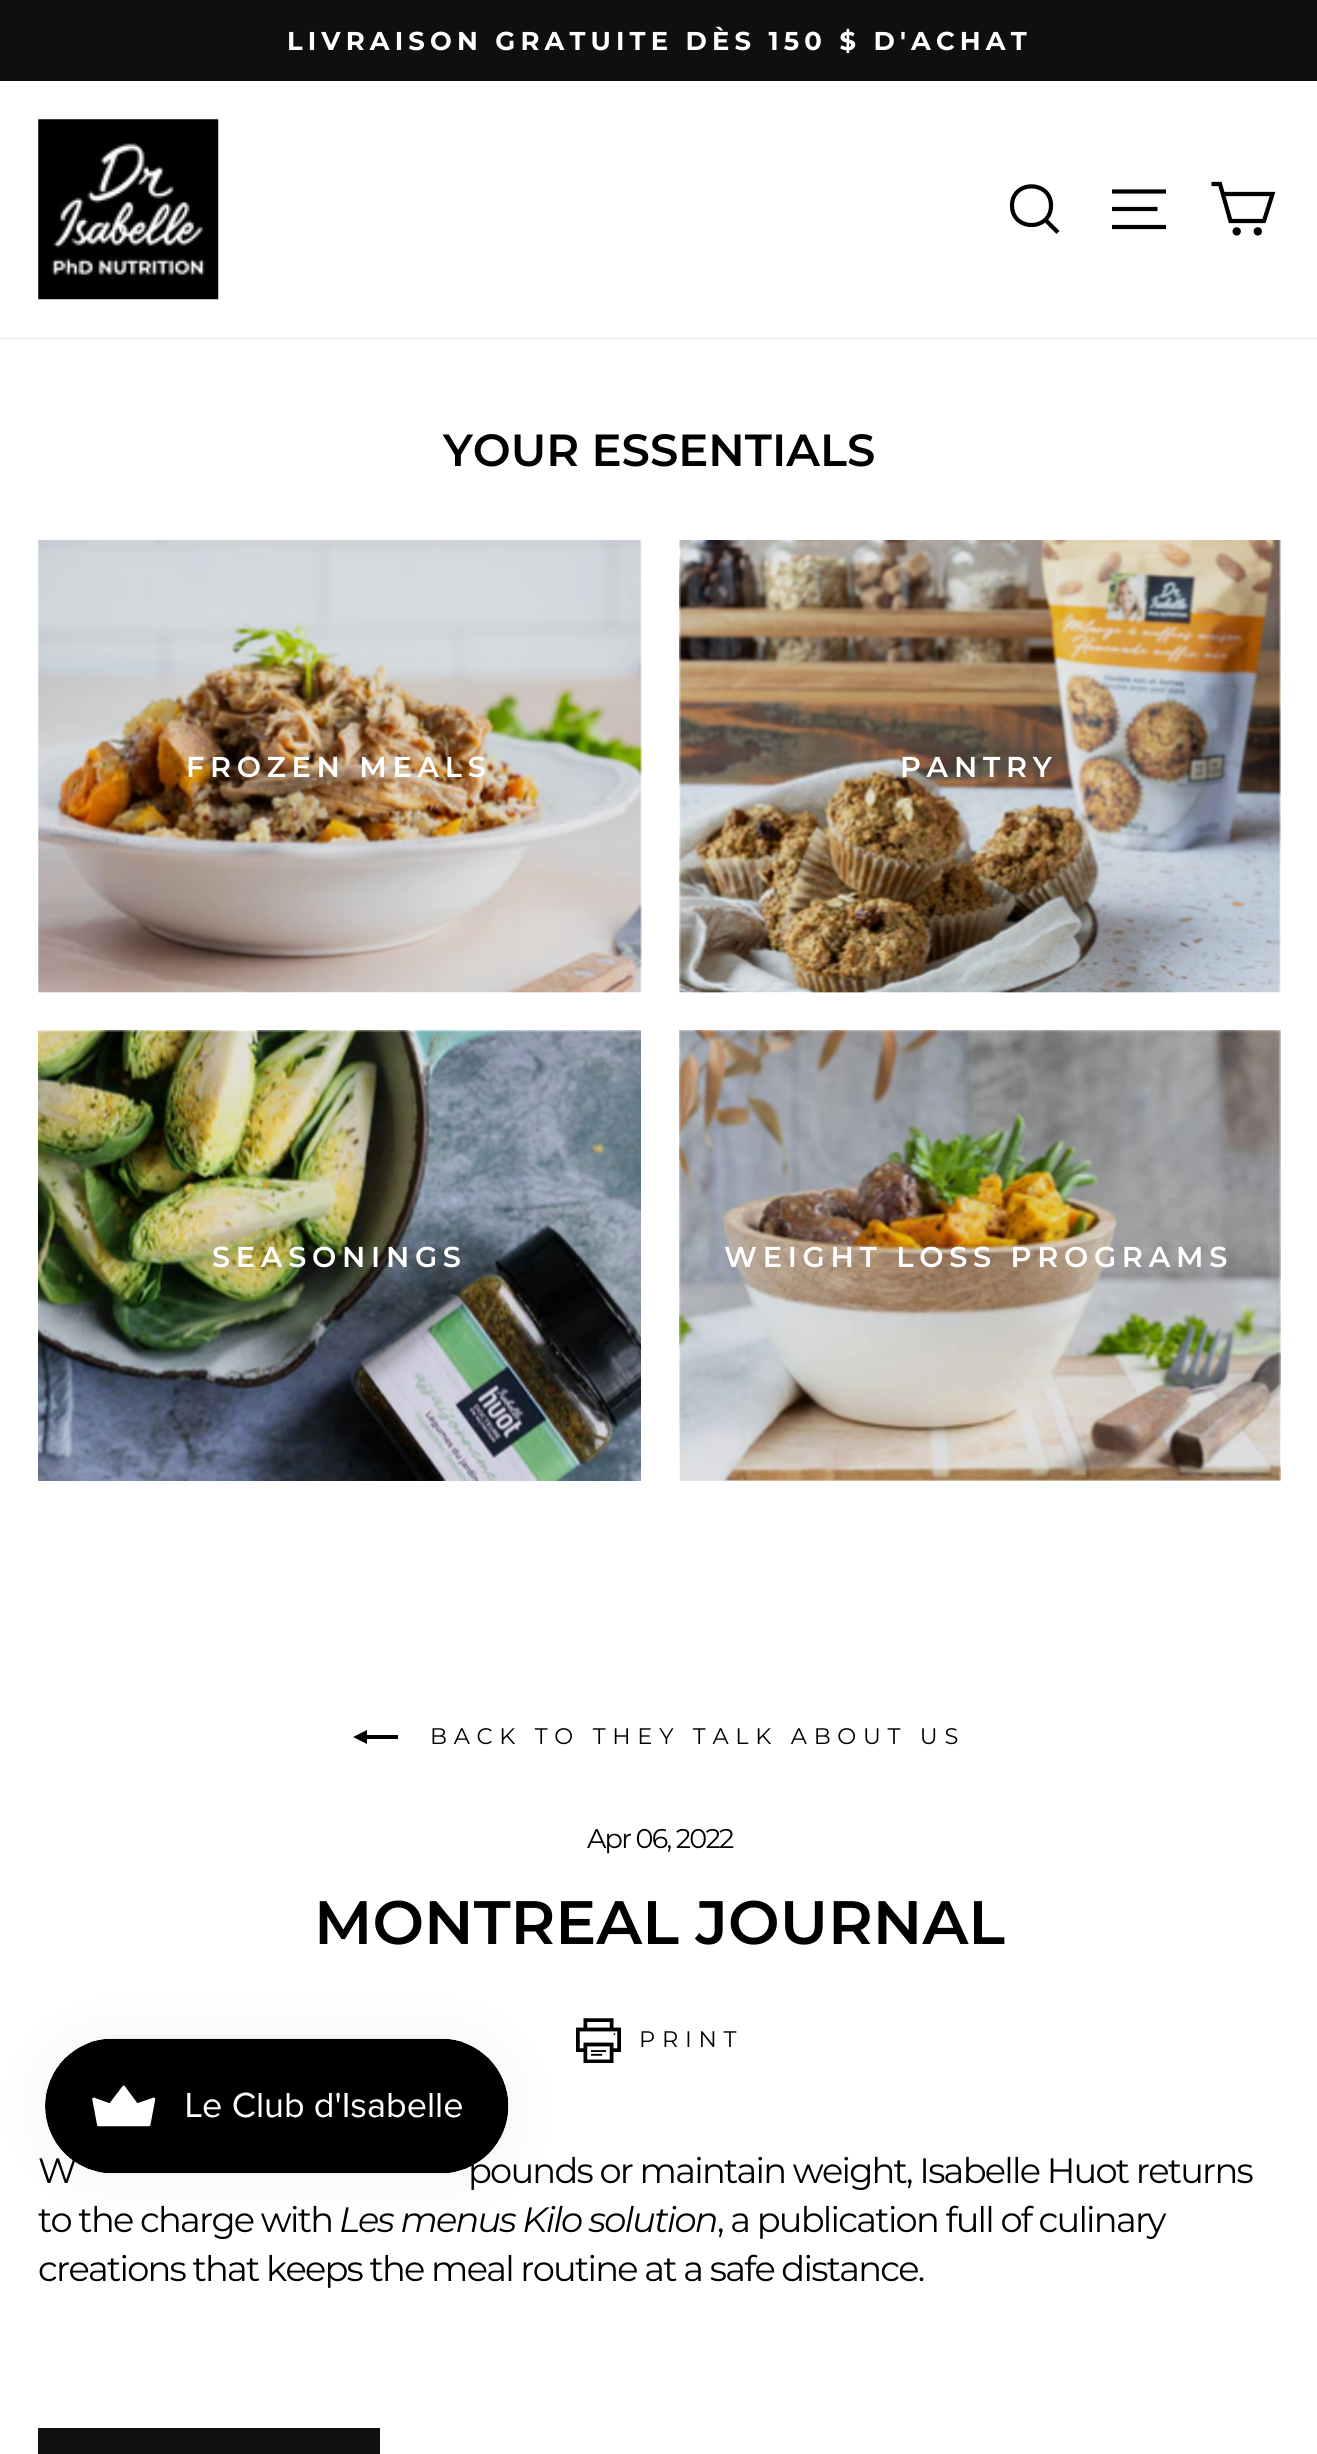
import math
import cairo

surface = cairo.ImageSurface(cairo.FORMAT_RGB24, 1317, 2454)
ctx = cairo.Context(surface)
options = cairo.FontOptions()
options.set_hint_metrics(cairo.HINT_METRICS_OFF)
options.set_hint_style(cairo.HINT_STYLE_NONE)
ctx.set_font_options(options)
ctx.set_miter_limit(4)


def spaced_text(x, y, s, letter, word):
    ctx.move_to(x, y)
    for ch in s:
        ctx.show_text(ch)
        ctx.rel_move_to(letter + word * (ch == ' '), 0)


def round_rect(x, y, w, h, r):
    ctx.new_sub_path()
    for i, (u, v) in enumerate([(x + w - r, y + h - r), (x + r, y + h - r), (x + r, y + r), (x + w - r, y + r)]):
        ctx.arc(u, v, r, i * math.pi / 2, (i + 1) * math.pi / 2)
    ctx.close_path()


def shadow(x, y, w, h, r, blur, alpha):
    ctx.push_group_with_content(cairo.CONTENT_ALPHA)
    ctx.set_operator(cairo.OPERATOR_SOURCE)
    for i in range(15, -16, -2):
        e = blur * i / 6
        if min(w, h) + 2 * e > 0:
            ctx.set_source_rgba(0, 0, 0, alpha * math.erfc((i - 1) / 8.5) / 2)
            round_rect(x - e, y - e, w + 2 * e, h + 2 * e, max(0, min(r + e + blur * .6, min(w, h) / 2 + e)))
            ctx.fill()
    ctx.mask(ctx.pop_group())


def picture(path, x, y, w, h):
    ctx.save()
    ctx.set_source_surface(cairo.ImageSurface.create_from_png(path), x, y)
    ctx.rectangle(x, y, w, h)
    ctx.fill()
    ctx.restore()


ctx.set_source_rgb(1, 1, 1)
ctx.paint()
ctx.set_source_rgb(0.902, 0.902, 0.902)
ctx.rectangle(680, 1031, 600, 450)
ctx.fill()
ctx.set_source_rgb(0.059, 0.059, 0.059)
ctx.rectangle(0, 0, 1317, 81)
ctx.fill()
ctx.select_font_face("Montserrat", cairo.FONT_SLANT_NORMAL, cairo.FONT_WEIGHT_BOLD)
ctx.set_font_size(25.8)
ctx.set_source_rgb(1, 1, 1)
spaced_text(287, 50, "LIVRAISON GRATUITE DÈS 150 $ D'ACHAT", 5.15, 0)
ctx.set_source_rgb(0, 0, 0)
shadow(0, 81, 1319, 257, 0, 1, 0.2)
ctx.set_source_rgb(1, 1, 1)
ctx.rectangle(0, 81, 1317, 257)
ctx.fill()
picture("img1.png", 38, 119, 181, 181)
ctx.new_path()
ctx.move_to(1051, 205.5)
ctx.curve_to(1051, 231.5, 1012, 231.5, 1012, 205.5)
ctx.curve_to(1012, 180, 1051, 180, 1051, 205.5)
ctx.close_path()
ctx.move_to(1058, 232.5)
ctx.line_to(1045.5, 220)
ctx.set_source_rgb(0, 0, 0)
ctx.set_line_width(4.2)
ctx.stroke()
ctx.new_path()
ctx.move_to(1112, 191.5)
ctx.line_to(1166, 191.5)
ctx.move_to(1112, 209)
ctx.line_to(1157.5, 209)
ctx.move_to(1112, 227)
ctx.line_to(1166, 227)
ctx.stroke()
ctx.new_path()
ctx.move_to(1223, 194)
ctx.line_to(1272.5, 194)
ctx.line_to(1264, 221)
ctx.line_to(1230.5, 221)
ctx.line_to(1220, 184)
ctx.line_to(1211.5, 184)
ctx.stroke()
ctx.arc(1236.7, 231.4, 2.1, 0, 2 * math.pi)
ctx.stroke()
ctx.arc(1257.8, 231.4, 2.1, 0, 2 * math.pi)
ctx.stroke()
ctx.select_font_face("Montserrat SemiBold")
ctx.set_font_size(45)
ctx.move_to(443, 466)
ctx.show_text("YOUR ESSENTIALS")
picture("img2.png", 38, 540, 604, 453)
ctx.set_font_size(28.75)
ctx.set_source_rgb(1, 1, 1)
spaced_text(186, 777, "FROZEN MEALS", 5.75, 0)
picture("img3.png", 679, 540, 602, 453)
spaced_text(900, 777, "PANTRY", 5.75, 0)
picture("img4.png", 38, 1030, 603, 451)
spaced_text(212, 1267, "SEASONINGS", 5.75, 0)
picture("img5.png", 679, 1030, 602, 451)
spaced_text(724, 1267, "WEIGHT LOSS PROGRAMS", 5.75, 0)
ctx.set_source_rgb(0, 0, 0)
ctx.new_path()
ctx.move_to(398, 1735)
ctx.line_to(398, 1739)
ctx.line_to(367, 1739)
ctx.line_to(367, 1744)
ctx.line_to(353, 1737)
ctx.line_to(367, 1730)
ctx.line_to(367, 1735)
ctx.close_path()
ctx.fill()
ctx.select_font_face("Montserrat")
ctx.set_font_size(22.5)
spaced_text(430, 1744, "BACK TO THEY TALK ABOUT US", 6.75, 0)
ctx.set_font_size(27)
spaced_text(587, 1848, "Apr 06, 2022", -1.75, 0)
ctx.select_font_face("Montserrat SemiBold")
ctx.set_font_size(61.25)
ctx.move_to(314, 1944)
ctx.show_text("MONTREAL JOURNAL")
picture("img6.png", 576, 2018, 45, 45)
ctx.select_font_face("Montserrat")
ctx.set_font_size(22.5)
spaced_text(639, 2047, "PRINT", 6.75, 0)
ctx.set_font_size(35.2)
spaced_text(38, 2183, "W", -1.75, 0)
spaced_text(468, 2183, "pounds or maintain weight, Isabelle Huot returns", -1.75, 0)
spaced_text(38, 2232, "to the charge with", -1.75, 0)
ctx.select_font_face("Montserrat", cairo.FONT_SLANT_ITALIC)
spaced_text(339, 2232, "Les menus Kilo solution", -1.75, 0)
ctx.select_font_face("Montserrat")
spaced_text(717, 2232, ", a publication full of culinary", -1.75, 0)
spaced_text(38, 2281, "creations that keeps the meal routine at a safe distance.", -1.75, 0)
ctx.set_source_rgb(0.067, 0.067, 0.067)
ctx.rectangle(38, 2428, 342, 26)
ctx.fill()
ctx.set_source_rgb(0, 0, 0)
shadow(45, 2039, 464, 135, 67.5, 28, 0.05)
picture("img7.png", 45, 2038, 464, 136)
surface.write_to_png("page.png")
